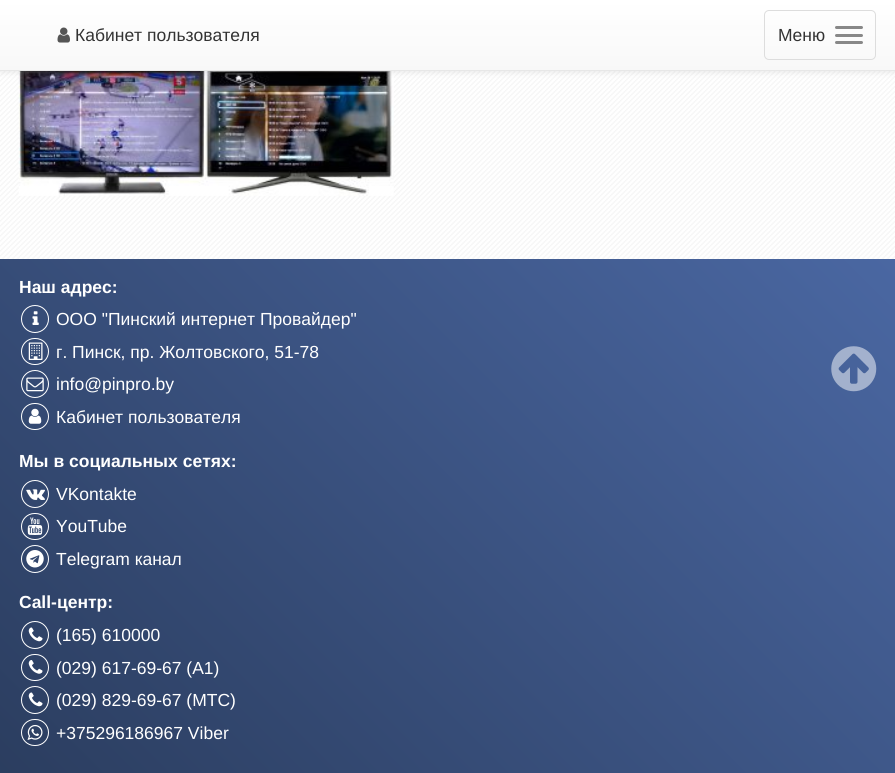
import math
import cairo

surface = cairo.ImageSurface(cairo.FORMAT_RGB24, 895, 773)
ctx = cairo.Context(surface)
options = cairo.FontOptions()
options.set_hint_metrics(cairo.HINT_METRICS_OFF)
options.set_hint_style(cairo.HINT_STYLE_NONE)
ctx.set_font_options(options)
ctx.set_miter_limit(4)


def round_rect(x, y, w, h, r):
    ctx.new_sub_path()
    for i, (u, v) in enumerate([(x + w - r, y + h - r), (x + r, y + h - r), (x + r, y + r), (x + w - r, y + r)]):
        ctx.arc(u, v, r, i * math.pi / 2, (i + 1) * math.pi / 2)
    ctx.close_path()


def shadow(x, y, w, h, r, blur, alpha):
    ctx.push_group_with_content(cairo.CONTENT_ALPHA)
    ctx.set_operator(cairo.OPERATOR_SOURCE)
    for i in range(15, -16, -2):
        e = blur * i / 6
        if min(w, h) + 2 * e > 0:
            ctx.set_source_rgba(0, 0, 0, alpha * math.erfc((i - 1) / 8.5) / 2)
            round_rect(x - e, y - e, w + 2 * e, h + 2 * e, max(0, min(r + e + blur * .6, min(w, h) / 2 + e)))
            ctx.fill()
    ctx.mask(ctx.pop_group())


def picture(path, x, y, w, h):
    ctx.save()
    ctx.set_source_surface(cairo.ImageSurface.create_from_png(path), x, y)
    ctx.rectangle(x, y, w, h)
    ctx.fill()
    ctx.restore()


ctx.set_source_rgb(1, 1, 1)
ctx.paint()
picture("img1.png", 0, 71, 895, 188)
picture("img3.png", 18, 71, 376, 125)
ctx.set_source_rgb(0, 0, 0)
shadow(0, 1, 895, 72, 0, 3, 0.07)
gradient = cairo.LinearGradient(448, 0, 448, 70)
gradient.add_color_stop_rgba(0, 1, 1, 1, 1)
gradient.add_color_stop_rgba(1, 0.973, 0.973, 0.973, 1)
ctx.set_source(gradient)
ctx.rectangle(0, 0, 895, 70)
ctx.fill()
ctx.set_source_rgb(0.906, 0.906, 0.906)
ctx.rectangle(0, 70, 895, 1)
ctx.fill()
picture("img2.png", 57, 27, 13, 16)
ctx.select_font_face("Liberation Sans")
ctx.set_font_size(17.5)
ctx.set_source_rgb(0.2, 0.2, 0.2)
ctx.move_to(75, 41)
ctx.show_text("Кабинет пользователя")
round_rect(764.5, 10.5, 111, 49, 4.5)
ctx.set_source_rgb(0.867, 0.867, 0.867)
ctx.set_line_width(1)
ctx.stroke()
ctx.set_source_rgb(0.2, 0.2, 0.2)
ctx.move_to(778, 41)
ctx.show_text("Меню")
ctx.set_source_rgb(0.533, 0.533, 0.533)
round_rect(835, 26, 28, 3, 1.5)
ctx.fill()
round_rect(835, 34, 28, 3, 1.5)
ctx.fill()
round_rect(835, 41, 28, 3, 1.5)
ctx.fill()
gradient = cairo.LinearGradient(82, 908, 813, 177)
gradient.add_color_stop_rgba(0, 0.165, 0.235, 0.365, 1)
gradient.add_color_stop_rgba(1, 0.29, 0.404, 0.635, 1)
ctx.set_source(gradient)
ctx.rectangle(0, 259, 895, 514)
ctx.fill()
ctx.select_font_face("Liberation Sans", cairo.FONT_SLANT_NORMAL, cairo.FONT_WEIGHT_BOLD)
ctx.set_source_rgb(1, 1, 1)
ctx.move_to(19, 293)
ctx.show_text("Наш адрес:")
ctx.new_path()
ctx.arc(35, 319, 13.5, 0, 2 * math.pi)
ctx.stroke()
picture("img4.png", 32, 311, 7, 14)
ctx.select_font_face("Liberation Sans")
ctx.move_to(56, 325)
ctx.show_text("ООО \"Пинский интернет Провайдер\"")
round_rect(21.5, 338.5, 27, 26, 13)
ctx.stroke()
picture("img5.png", 28, 342, 15, 18)
ctx.move_to(56, 358)
ctx.show_text("г. Пинск, пр. Жолтовского, 51-78")
ctx.new_path()
ctx.arc(35, 384, 13.5, 0, 2 * math.pi)
ctx.stroke()
picture("img6.png", 26, 377, 18, 15)
ctx.move_to(56, 390)
ctx.show_text("info@pinpro.by")
round_rect(21.5, 403.5, 27, 26, 13)
ctx.stroke()
picture("img7.png", 28, 408, 14, 16)
ctx.move_to(56, 423)
ctx.show_text("Кабинет пользователя")
picture("img8.png", 831, 346, 46, 46)
ctx.select_font_face("Liberation Sans", cairo.FONT_SLANT_NORMAL, cairo.FONT_WEIGHT_BOLD)
ctx.move_to(19, 467)
ctx.show_text("Мы в социальных сетях:")
ctx.new_path()
ctx.arc(35, 494, 13.5, 0, 2 * math.pi)
ctx.stroke()
picture("img9.png", 26, 489, 19, 11)
ctx.select_font_face("Liberation Sans")
ctx.move_to(56, 500)
ctx.show_text("VKontakte")
round_rect(21.5, 513.5, 27, 26, 13)
ctx.stroke()
picture("img10.png", 27, 517, 16, 18)
ctx.move_to(56, 532)
ctx.show_text("YouTube")
ctx.new_path()
ctx.arc(35, 559, 13.5, 0, 2 * math.pi)
ctx.stroke()
picture("img11.png", 26, 550, 18, 18)
ctx.move_to(56, 565)
ctx.show_text("Telegram канал")
ctx.select_font_face("Liberation Sans", cairo.FONT_SLANT_NORMAL, cairo.FONT_WEIGHT_BOLD)
ctx.move_to(19, 608)
ctx.show_text("Call-центр:")
ctx.new_path()
ctx.arc(35, 635, 13.5, 0, 2 * math.pi)
ctx.stroke()
picture("img12.png", 28, 627, 15, 15)
ctx.select_font_face("Liberation Sans")
ctx.move_to(56, 641)
ctx.show_text("(165) 610000")
round_rect(21.5, 654.5, 27, 26, 13)
ctx.stroke()
picture("img13.png", 28, 660, 15, 14)
ctx.move_to(56, 674)
ctx.show_text("(029) 617-69-67 (А1)")
ctx.new_path()
ctx.arc(35, 700, 13.5, 0, 2 * math.pi)
ctx.stroke()
picture("img14.png", 28, 692, 15, 15)
ctx.move_to(56, 706)
ctx.show_text("(029) 829-69-67 (МТС)")
round_rect(21.5, 719.5, 27, 26, 13)
ctx.stroke()
picture("img15.png", 27, 724, 16, 16)
ctx.move_to(56, 739)
ctx.show_text("+375296186967 Viber")
surface.write_to_png("page.png")
